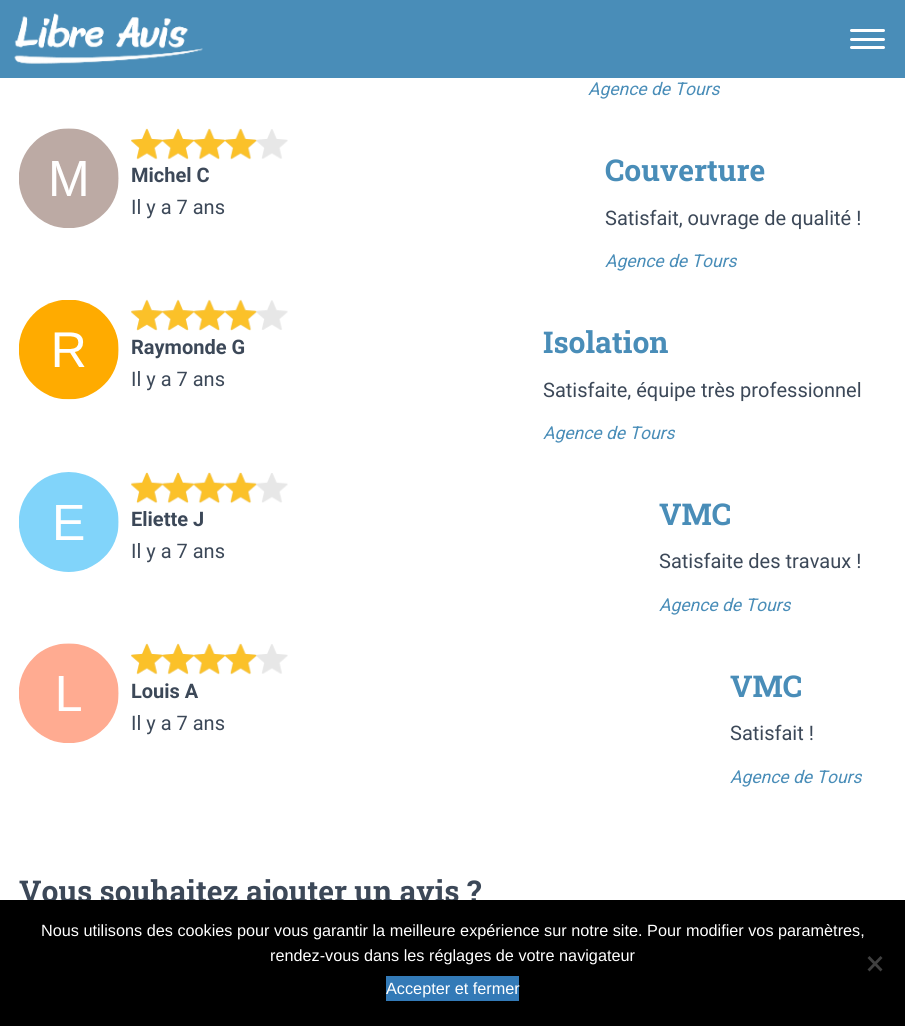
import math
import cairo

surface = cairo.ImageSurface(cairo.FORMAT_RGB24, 905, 1026)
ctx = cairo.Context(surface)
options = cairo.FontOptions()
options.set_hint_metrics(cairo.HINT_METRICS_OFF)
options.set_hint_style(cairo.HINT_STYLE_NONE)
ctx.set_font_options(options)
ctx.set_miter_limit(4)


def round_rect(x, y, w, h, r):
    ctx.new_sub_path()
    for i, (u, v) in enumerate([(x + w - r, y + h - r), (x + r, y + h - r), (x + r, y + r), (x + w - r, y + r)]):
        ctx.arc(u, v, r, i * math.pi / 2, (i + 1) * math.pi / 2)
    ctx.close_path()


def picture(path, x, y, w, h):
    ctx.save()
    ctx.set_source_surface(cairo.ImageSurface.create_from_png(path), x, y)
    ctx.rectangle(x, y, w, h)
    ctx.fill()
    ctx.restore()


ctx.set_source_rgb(1, 1, 1)
ctx.paint()
ctx.set_source_rgb(0.286, 0.553, 0.722)
ctx.rectangle(0, 0, 905, 78)
ctx.fill()
picture("img1.png", 14, 13, 189, 51)
ctx.set_source_rgb(1, 1, 1)
round_rect(850, 29, 35, 3, 1.5)
ctx.fill()
round_rect(850, 38, 35, 3, 1.5)
ctx.fill()
round_rect(850, 46, 35, 3, 1.5)
ctx.fill()
ctx.select_font_face("Roboto", cairo.FONT_SLANT_ITALIC)
ctx.set_font_size(17.5)
ctx.set_source_rgb(0.286, 0.553, 0.722)
ctx.move_to(588, 95)
ctx.show_text("Agence de Tours")
picture("img2.png", 19, 128, 100, 100)
picture("img3.png", 131, 129, 157, 30)
picture("img4.png", 131, 128, 126, 32)
ctx.select_font_face("Roboto", cairo.FONT_SLANT_NORMAL, cairo.FONT_WEIGHT_BOLD)
ctx.set_font_size(20)
ctx.set_source_rgb(0.235, 0.282, 0.345)
ctx.move_to(131, 182)
ctx.show_text("Michel C")
ctx.select_font_face("Roboto")
ctx.move_to(131, 214)
ctx.show_text("Il y a 7 ans")
ctx.select_font_face("Roboto Slab", cairo.FONT_SLANT_NORMAL, cairo.FONT_WEIGHT_BOLD)
ctx.set_font_size(30)
ctx.set_source_rgb(0.286, 0.553, 0.722)
ctx.move_to(605, 181)
ctx.show_text("Couverture")
ctx.select_font_face("Roboto")
ctx.set_font_size(20)
ctx.set_source_rgb(0.235, 0.282, 0.345)
ctx.move_to(605, 225)
ctx.show_text("Satisfait, ouvrage de qualité !")
ctx.select_font_face("Roboto", cairo.FONT_SLANT_ITALIC)
ctx.set_font_size(17.5)
ctx.set_source_rgb(0.286, 0.553, 0.722)
ctx.move_to(605, 267)
ctx.show_text("Agence de Tours")
picture("img5.png", 19, 300, 100, 100)
picture("img6.png", 131, 300, 157, 30)
picture("img7.png", 131, 299, 126, 32)
ctx.select_font_face("Roboto", cairo.FONT_SLANT_NORMAL, cairo.FONT_WEIGHT_BOLD)
ctx.set_font_size(20)
ctx.set_source_rgb(0.235, 0.282, 0.345)
ctx.move_to(131, 354)
ctx.show_text("Raymonde G")
ctx.select_font_face("Roboto")
ctx.move_to(131, 386)
ctx.show_text("Il y a 7 ans")
ctx.select_font_face("Roboto Slab", cairo.FONT_SLANT_NORMAL, cairo.FONT_WEIGHT_BOLD)
ctx.set_font_size(30)
ctx.set_source_rgb(0.286, 0.553, 0.722)
ctx.move_to(543, 353)
ctx.show_text("Isolation")
ctx.select_font_face("Roboto")
ctx.set_font_size(20)
ctx.set_source_rgb(0.235, 0.282, 0.345)
ctx.move_to(543, 397)
ctx.show_text("Satisfaite, équipe très professionnel")
ctx.select_font_face("Roboto", cairo.FONT_SLANT_ITALIC)
ctx.set_font_size(17.5)
ctx.set_source_rgb(0.286, 0.553, 0.722)
ctx.move_to(543, 439)
ctx.show_text("Agence de Tours")
picture("img8.png", 19, 472, 100, 100)
picture("img9.png", 131, 473, 157, 30)
picture("img10.png", 131, 472, 126, 32)
ctx.select_font_face("Roboto", cairo.FONT_SLANT_NORMAL, cairo.FONT_WEIGHT_BOLD)
ctx.set_font_size(20)
ctx.set_source_rgb(0.235, 0.282, 0.345)
ctx.move_to(131, 526)
ctx.show_text("Eliette J")
ctx.select_font_face("Roboto")
ctx.move_to(131, 558)
ctx.show_text("Il y a 7 ans")
ctx.select_font_face("Roboto Slab", cairo.FONT_SLANT_NORMAL, cairo.FONT_WEIGHT_BOLD)
ctx.set_font_size(30)
ctx.set_source_rgb(0.286, 0.553, 0.722)
ctx.move_to(659, 525)
ctx.show_text("VMC")
ctx.select_font_face("Roboto")
ctx.set_font_size(20)
ctx.set_source_rgb(0.235, 0.282, 0.345)
ctx.move_to(659, 568)
ctx.show_text("Satisfaite des travaux !")
ctx.select_font_face("Roboto", cairo.FONT_SLANT_ITALIC)
ctx.set_font_size(17.5)
ctx.set_source_rgb(0.286, 0.553, 0.722)
ctx.move_to(659, 611)
ctx.show_text("Agence de Tours")
picture("img11.png", 19, 643, 100, 100)
picture("img3.png", 131, 644, 157, 30)
picture("img12.png", 131, 643, 126, 32)
ctx.select_font_face("Roboto", cairo.FONT_SLANT_NORMAL, cairo.FONT_WEIGHT_BOLD)
ctx.set_font_size(20)
ctx.set_source_rgb(0.235, 0.282, 0.345)
ctx.move_to(131, 698)
ctx.show_text("Louis A")
ctx.select_font_face("Roboto")
ctx.move_to(131, 730)
ctx.show_text("Il y a 7 ans")
ctx.select_font_face("Roboto Slab", cairo.FONT_SLANT_NORMAL, cairo.FONT_WEIGHT_BOLD)
ctx.set_font_size(30)
ctx.set_source_rgb(0.286, 0.553, 0.722)
ctx.move_to(730, 697)
ctx.show_text("VMC")
ctx.select_font_face("Roboto")
ctx.set_font_size(20)
ctx.set_source_rgb(0.235, 0.282, 0.345)
ctx.move_to(730, 740)
ctx.show_text("Satisfait !")
ctx.select_font_face("Roboto", cairo.FONT_SLANT_ITALIC)
ctx.set_font_size(17.5)
ctx.set_source_rgb(0.286, 0.553, 0.722)
ctx.move_to(730, 783)
ctx.show_text("Agence de Tours")
ctx.select_font_face("Roboto Slab", cairo.FONT_SLANT_NORMAL, cairo.FONT_WEIGHT_BOLD)
ctx.set_font_size(30)
ctx.set_source_rgb(0.235, 0.282, 0.345)
ctx.move_to(19, 902)
ctx.show_text("Vous souhaitez ajouter un avis ?")
ctx.set_source_rgb(0, 0, 0)
ctx.rectangle(0, 900, 905, 126)
ctx.fill()
ctx.select_font_face("Liberation Sans")
ctx.set_font_size(16.25)
ctx.set_source_rgb(1, 1, 1)
ctx.move_to(41, 936)
ctx.show_text("Nous utilisons des cookies pour vous garantir la meilleure expérience sur notre site. Pour modifier vos paramètres,")
ctx.move_to(270, 961)
ctx.show_text("rendez-vous dans les réglages de votre navigateur")
ctx.set_source_rgb(0.251, 0.251, 0.251)
ctx.new_path()
ctx.move_to(880.5, 956)
ctx.line_to(882.5, 958)
ctx.line_to(869.5, 971.5)
ctx.line_to(867.5, 969.5)
ctx.close_path()
ctx.fill()
ctx.new_path()
ctx.move_to(867.5, 958)
ctx.line_to(869.5, 956)
ctx.line_to(882.5, 969.5)
ctx.line_to(880.5, 971.5)
ctx.close_path()
ctx.fill()
ctx.set_source_rgb(0.2, 0.478, 0.718)
ctx.rectangle(386, 976, 133, 25)
ctx.fill()
ctx.set_source_rgb(1, 1, 1)
ctx.move_to(386, 994)
ctx.show_text("Accepter et fermer")
surface.write_to_png("page.png")
